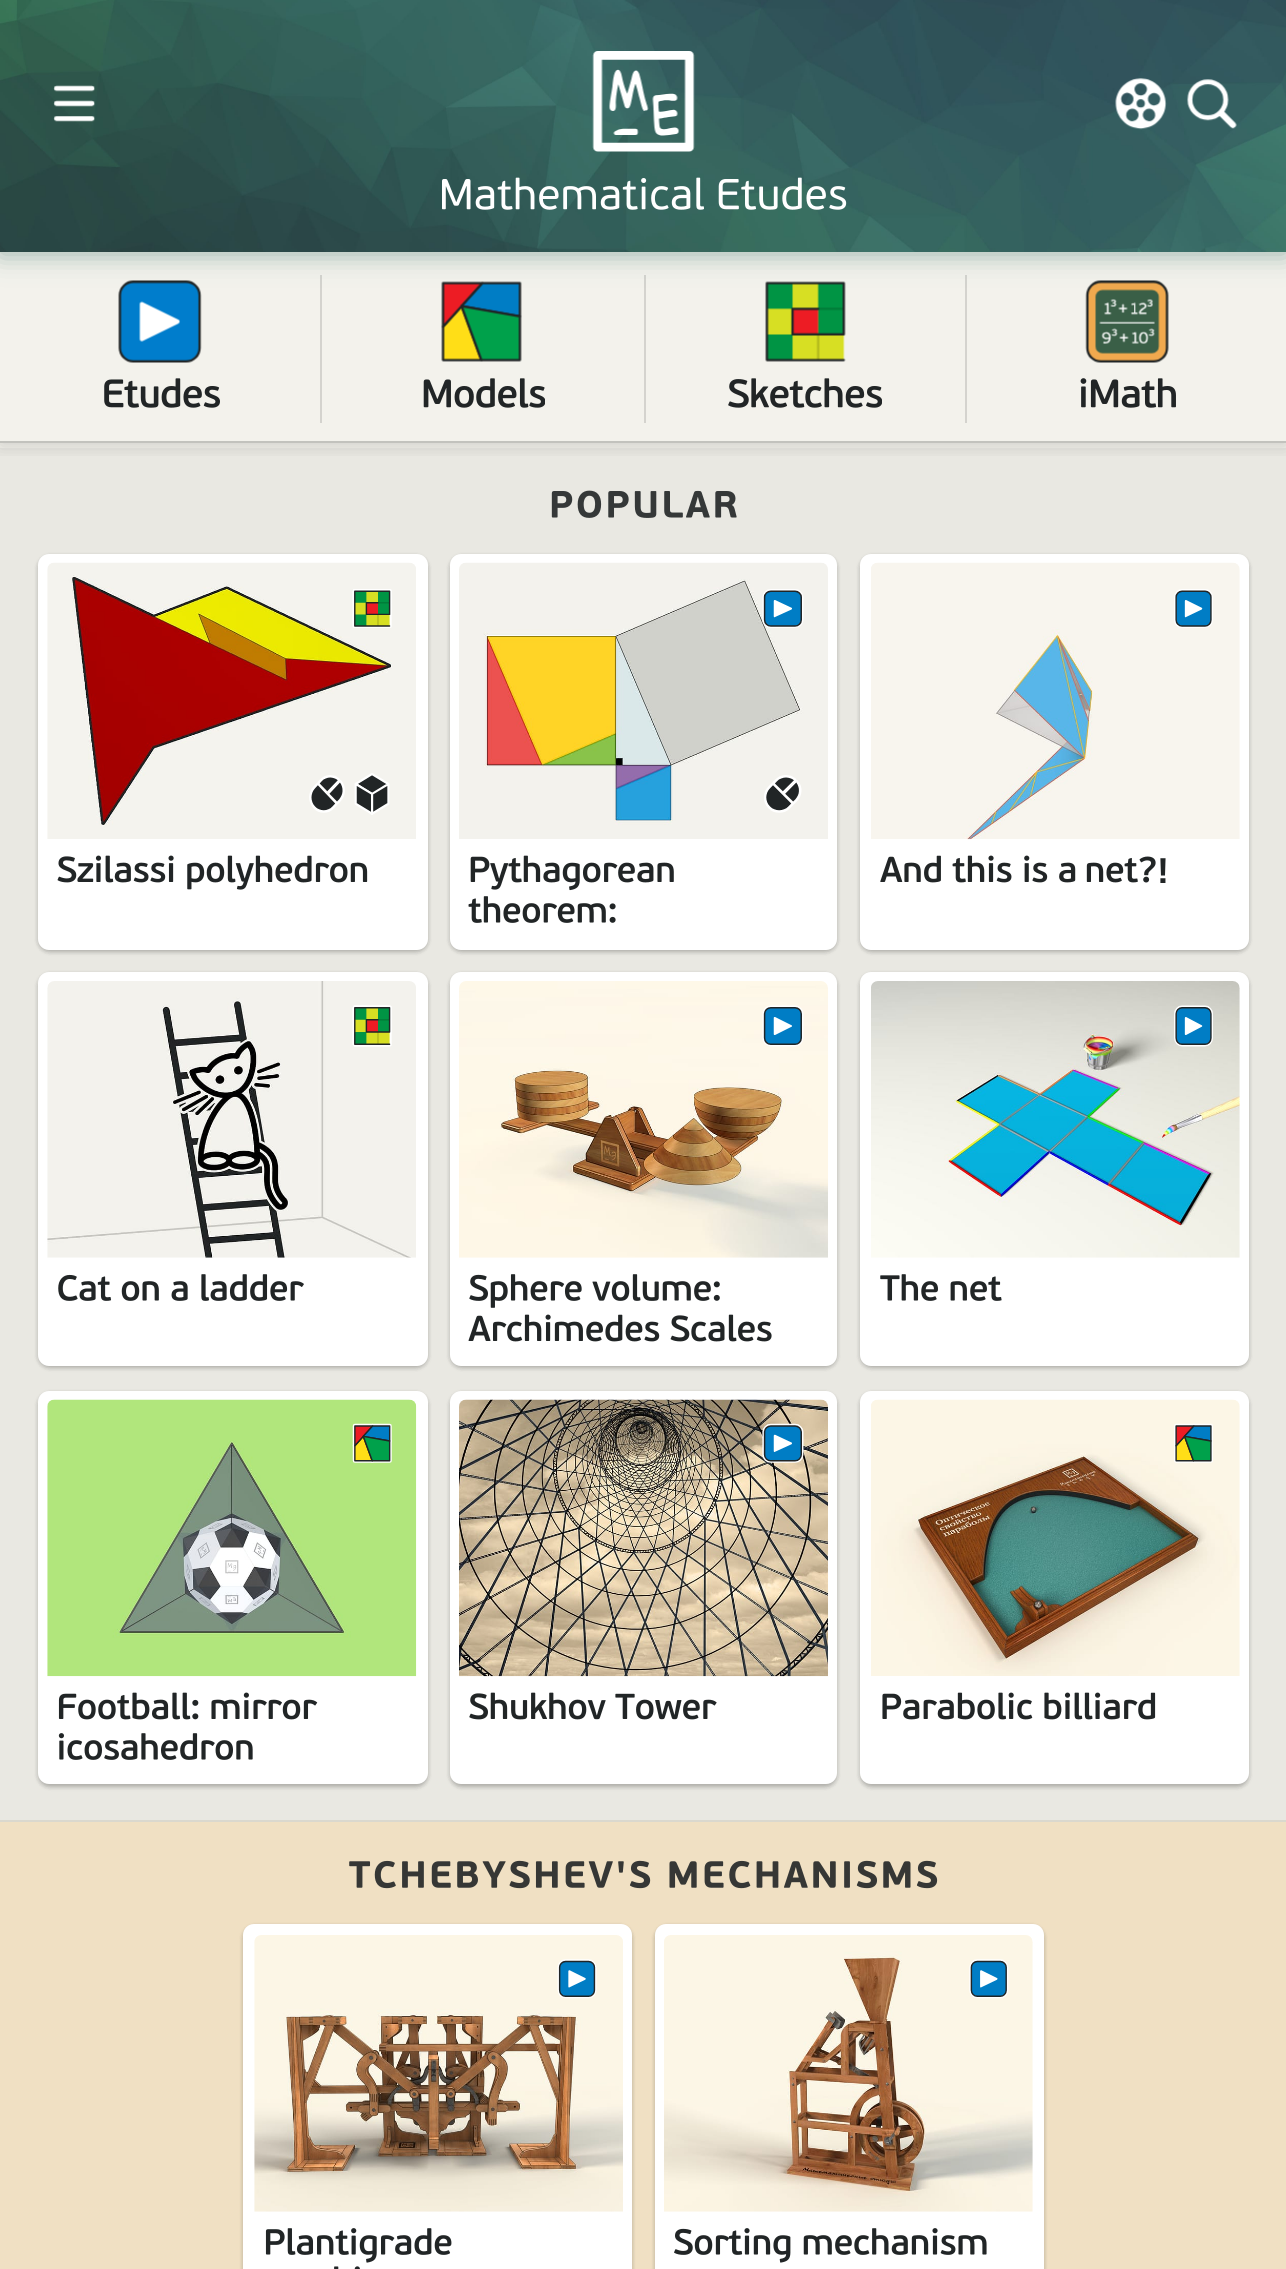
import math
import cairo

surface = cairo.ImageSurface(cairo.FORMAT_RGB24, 1286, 2269)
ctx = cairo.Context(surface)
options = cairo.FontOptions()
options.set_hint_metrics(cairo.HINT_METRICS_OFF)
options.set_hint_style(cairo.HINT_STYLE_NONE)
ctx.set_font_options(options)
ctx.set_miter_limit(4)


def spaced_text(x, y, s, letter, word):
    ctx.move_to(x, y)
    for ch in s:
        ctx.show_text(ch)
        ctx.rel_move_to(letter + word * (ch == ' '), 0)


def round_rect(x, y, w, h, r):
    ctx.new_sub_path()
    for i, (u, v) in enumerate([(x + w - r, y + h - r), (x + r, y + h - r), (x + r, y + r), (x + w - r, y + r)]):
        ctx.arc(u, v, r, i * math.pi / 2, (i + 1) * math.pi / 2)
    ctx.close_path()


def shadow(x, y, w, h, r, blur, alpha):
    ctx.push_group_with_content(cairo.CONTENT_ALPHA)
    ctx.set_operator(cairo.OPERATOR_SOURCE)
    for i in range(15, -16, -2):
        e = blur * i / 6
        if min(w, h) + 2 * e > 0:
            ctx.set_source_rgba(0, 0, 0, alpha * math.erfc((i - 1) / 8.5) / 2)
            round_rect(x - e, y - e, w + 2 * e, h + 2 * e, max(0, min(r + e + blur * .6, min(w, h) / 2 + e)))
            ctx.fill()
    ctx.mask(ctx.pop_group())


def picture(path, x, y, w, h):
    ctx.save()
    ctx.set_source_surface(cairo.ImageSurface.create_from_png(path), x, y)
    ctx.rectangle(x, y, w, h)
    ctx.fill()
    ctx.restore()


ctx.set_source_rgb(0.953, 0.949, 0.925)
ctx.paint()
ctx.set_source_rgb(0.914, 0.91, 0.886)
ctx.rectangle(0, 448, 1286, 1372)
ctx.fill()
ctx.save()
ctx.rectangle(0, 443, 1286, 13)
ctx.clip()
ctx.set_source_rgb(0, 0, 0)
shadow(0, 250, 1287, 196, 0, 9, 0.15)
ctx.restore()
picture("img8.png", 118, 280, 84, 83)
ctx.set_source_rgb(0.831, 0.827, 0.808)
ctx.rectangle(320, 275, 2, 148)
ctx.fill()
picture("img10.png", 441, 281, 81, 81)
ctx.rectangle(644, 275, 2, 148)
ctx.fill()
picture("img12.png", 765, 281, 81, 81)
ctx.rectangle(965, 275, 2, 148)
ctx.fill()
picture("img14.png", 1085, 280, 84, 83)
ctx.set_source_rgb(0.243, 0.455, 0.424)
shadow(0, 2, 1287, 252, 0, 13.5, 0.5)
picture("img1.png", 0, 0, 1286, 252)
picture("img2.png", 53, 85, 42, 37)
picture("img3.png", 592, 51, 103, 101)
picture("img4.png", 442, 177, 262, 33)
picture("img5.png", 718, 177, 129, 33)
picture("img6.png", 1115, 78, 52, 52)
picture("img7.png", 1187, 79, 50, 50)
ctx.set_source_rgb(0.761, 0.761, 0.741)
ctx.rectangle(0, 441, 1286, 2)
ctx.fill()
picture("img9.png", 104, 378, 116, 30)
picture("img11.png", 423, 378, 122, 30)
picture("img13.png", 728, 378, 154, 30)
picture("img15.png", 1080, 378, 96, 30)
picture("img16.png", 551, 490, 186, 28)
ctx.set_source_rgb(0, 0, 0)
shadow(38, 556, 390, 396, 11, 3, 0.07)
shadow(38, 556, 390, 396, 11, 2.5, 0.07)
shadow(38, 556, 390, 396, 11, 2, 0.07)
shadow(38, 556, 390, 396, 11, 2, 0.07)
ctx.set_source_rgb(1, 1, 1)
round_rect(38, 554, 390, 396, 11)
ctx.fill()
picture("img17.png", 47, 562, 369, 277)
picture("img18.png", 352, 589, 40, 39)
picture("img19.png", 309, 775, 36, 38)
picture("img20.png", 354, 773, 36, 42)
picture("img21.png", 57, 855, 311, 35)
ctx.set_source_rgb(0, 0, 0)
shadow(450, 556, 387, 396, 11, 3, 0.07)
shadow(450, 556, 387, 396, 11, 2.5, 0.07)
shadow(450, 556, 387, 396, 11, 2, 0.07)
shadow(450, 556, 387, 396, 11, 2, 0.07)
ctx.set_source_rgb(1, 1, 1)
round_rect(450, 554, 387, 396, 11)
ctx.fill()
picture("img22.png", 459, 562, 369, 277)
picture("img23.png", 762, 589, 42, 39)
picture("img24.png", 764, 775, 38, 38)
picture("img25.png", 470, 855, 204, 36)
picture("img26.png", 468, 896, 148, 27)
ctx.set_source_rgb(0, 0, 0)
shadow(860, 556, 389, 396, 11, 3, 0.07)
shadow(860, 556, 389, 396, 11, 2.5, 0.07)
shadow(860, 556, 389, 396, 11, 2, 0.07)
shadow(860, 556, 389, 396, 11, 2, 0.07)
ctx.set_source_rgb(1, 1, 1)
round_rect(860, 554, 389, 396, 11)
ctx.fill()
picture("img27.png", 871, 562, 369, 278)
picture("img28.png", 1174, 589, 39, 39)
picture("img29.png", 880, 855, 168, 28)
picture("img30.png", 1059, 862, 17, 21)
picture("img31.png", 1086, 856, 70, 27)
ctx.select_font_face("Liberation Sans", cairo.FONT_SLANT_NORMAL, cairo.FONT_WEIGHT_BOLD)
ctx.set_font_size(36)
ctx.set_source_rgb(0.129, 0.145, 0.149)
spaced_text(1157, 883, "!", -1, 0)
ctx.set_source_rgb(0, 0, 0)
shadow(38, 974, 390, 394, 11, 3, 0.07)
shadow(38, 974, 390, 394, 11, 2.5, 0.07)
shadow(38, 974, 390, 394, 11, 2, 0.07)
shadow(38, 974, 390, 394, 11, 2, 0.07)
ctx.set_source_rgb(1, 1, 1)
round_rect(38, 972, 390, 394, 11)
ctx.fill()
picture("img32.png", 47, 981, 369, 277)
picture("img33.png", 352, 1005, 40, 42)
picture("img34.png", 58, 1274, 246, 27)
ctx.set_source_rgb(0, 0, 0)
shadow(450, 974, 387, 394, 11, 3, 0.07)
shadow(450, 974, 387, 394, 11, 2.5, 0.07)
shadow(450, 974, 387, 394, 11, 2, 0.07)
shadow(450, 974, 387, 394, 11, 2, 0.07)
ctx.set_source_rgb(1, 1, 1)
round_rect(450, 972, 387, 394, 11)
ctx.fill()
picture("img35.png", 459, 981, 369, 277)
picture("img36.png", 762, 1005, 42, 42)
picture("img37.png", 469, 1274, 251, 34)
picture("img38.png", 468, 1314, 304, 28)
ctx.set_source_rgb(0, 0, 0)
shadow(860, 974, 389, 394, 11, 3, 0.07)
shadow(860, 974, 389, 394, 11, 2.5, 0.07)
shadow(860, 974, 389, 394, 11, 2, 0.07)
shadow(860, 974, 389, 394, 11, 2, 0.07)
ctx.set_source_rgb(1, 1, 1)
round_rect(860, 972, 389, 394, 11)
ctx.fill()
picture("img39.png", 871, 981, 369, 277)
picture("img40.png", 1174, 1005, 39, 42)
picture("img41.png", 880, 1274, 122, 27)
ctx.set_source_rgb(0, 0, 0)
shadow(38, 1393, 390, 394, 11, 3, 0.07)
shadow(38, 1393, 390, 394, 11, 2.5, 0.07)
shadow(38, 1393, 390, 394, 11, 2, 0.07)
shadow(38, 1393, 390, 394, 11, 2, 0.07)
ctx.set_source_rgb(1, 1, 1)
round_rect(38, 1391, 390, 393, 11)
ctx.fill()
picture("img42.png", 47, 1399, 370, 278)
picture("img43.png", 352, 1423, 40, 40)
picture("img44.png", 58, 1692, 260, 28)
picture("img45.png", 58, 1733, 195, 27)
ctx.set_source_rgb(0, 0, 0)
shadow(450, 1393, 387, 394, 11, 3, 0.07)
shadow(450, 1393, 387, 394, 11, 2.5, 0.07)
shadow(450, 1393, 387, 394, 11, 2, 0.07)
shadow(450, 1393, 387, 394, 11, 2, 0.07)
ctx.set_source_rgb(1, 1, 1)
round_rect(450, 1391, 387, 393, 11)
ctx.fill()
picture("img46.png", 459, 1399, 369, 278)
picture("img47.png", 762, 1423, 42, 40)
picture("img48.png", 469, 1692, 248, 28)
ctx.set_source_rgb(0, 0, 0)
shadow(860, 1393, 389, 394, 11, 3, 0.07)
shadow(860, 1393, 389, 394, 11, 2.5, 0.07)
shadow(860, 1393, 389, 394, 11, 2, 0.07)
shadow(860, 1393, 389, 394, 11, 2, 0.07)
ctx.set_source_rgb(1, 1, 1)
round_rect(860, 1391, 389, 393, 11)
ctx.fill()
picture("img49.png", 871, 1399, 369, 277)
picture("img50.png", 1174, 1423, 39, 40)
picture("img51.png", 882, 1692, 274, 28)
ctx.set_source_rgb(0.941, 0.878, 0.765)
ctx.rectangle(0, 1822, 1286, 447)
ctx.fill()
ctx.set_source_rgb(0.855, 0.847, 0.808)
ctx.rectangle(0, 1820, 1286, 2)
ctx.fill()
picture("img52.png", 349, 1860, 589, 29)
ctx.set_source_rgb(0, 0, 0)
shadow(243, 1926, 389, 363, 11, 3, 0.07)
shadow(243, 1926, 389, 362, 11, 2.5, 0.07)
shadow(243, 1926, 389, 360, 11, 2, 0.07)
shadow(243, 1926, 389, 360, 11, 2, 0.07)
ctx.set_source_rgb(1, 1, 1)
round_rect(243, 1924, 389, 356, 11)
ctx.fill()
picture("img53.png", 254, 1935, 369, 277)
picture("img54.png", 557, 1959, 40, 40)
picture("img55.png", 265, 2228, 187, 35)
picture("img56.png", 334, 2266, 26, 3)
ctx.set_source_rgb(0, 0, 0)
shadow(655, 1926, 389, 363, 11, 3, 0.07)
shadow(655, 1926, 389, 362, 11, 2.5, 0.07)
shadow(655, 1926, 389, 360, 11, 2, 0.07)
shadow(655, 1926, 389, 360, 11, 2, 0.07)
ctx.set_source_rgb(1, 1, 1)
round_rect(655, 1924, 389, 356, 11)
ctx.fill()
picture("img57.png", 664, 1935, 369, 277)
picture("img58.png", 969, 1959, 40, 40)
picture("img59.png", 674, 2228, 313, 35)
surface.write_to_png("page.png")
